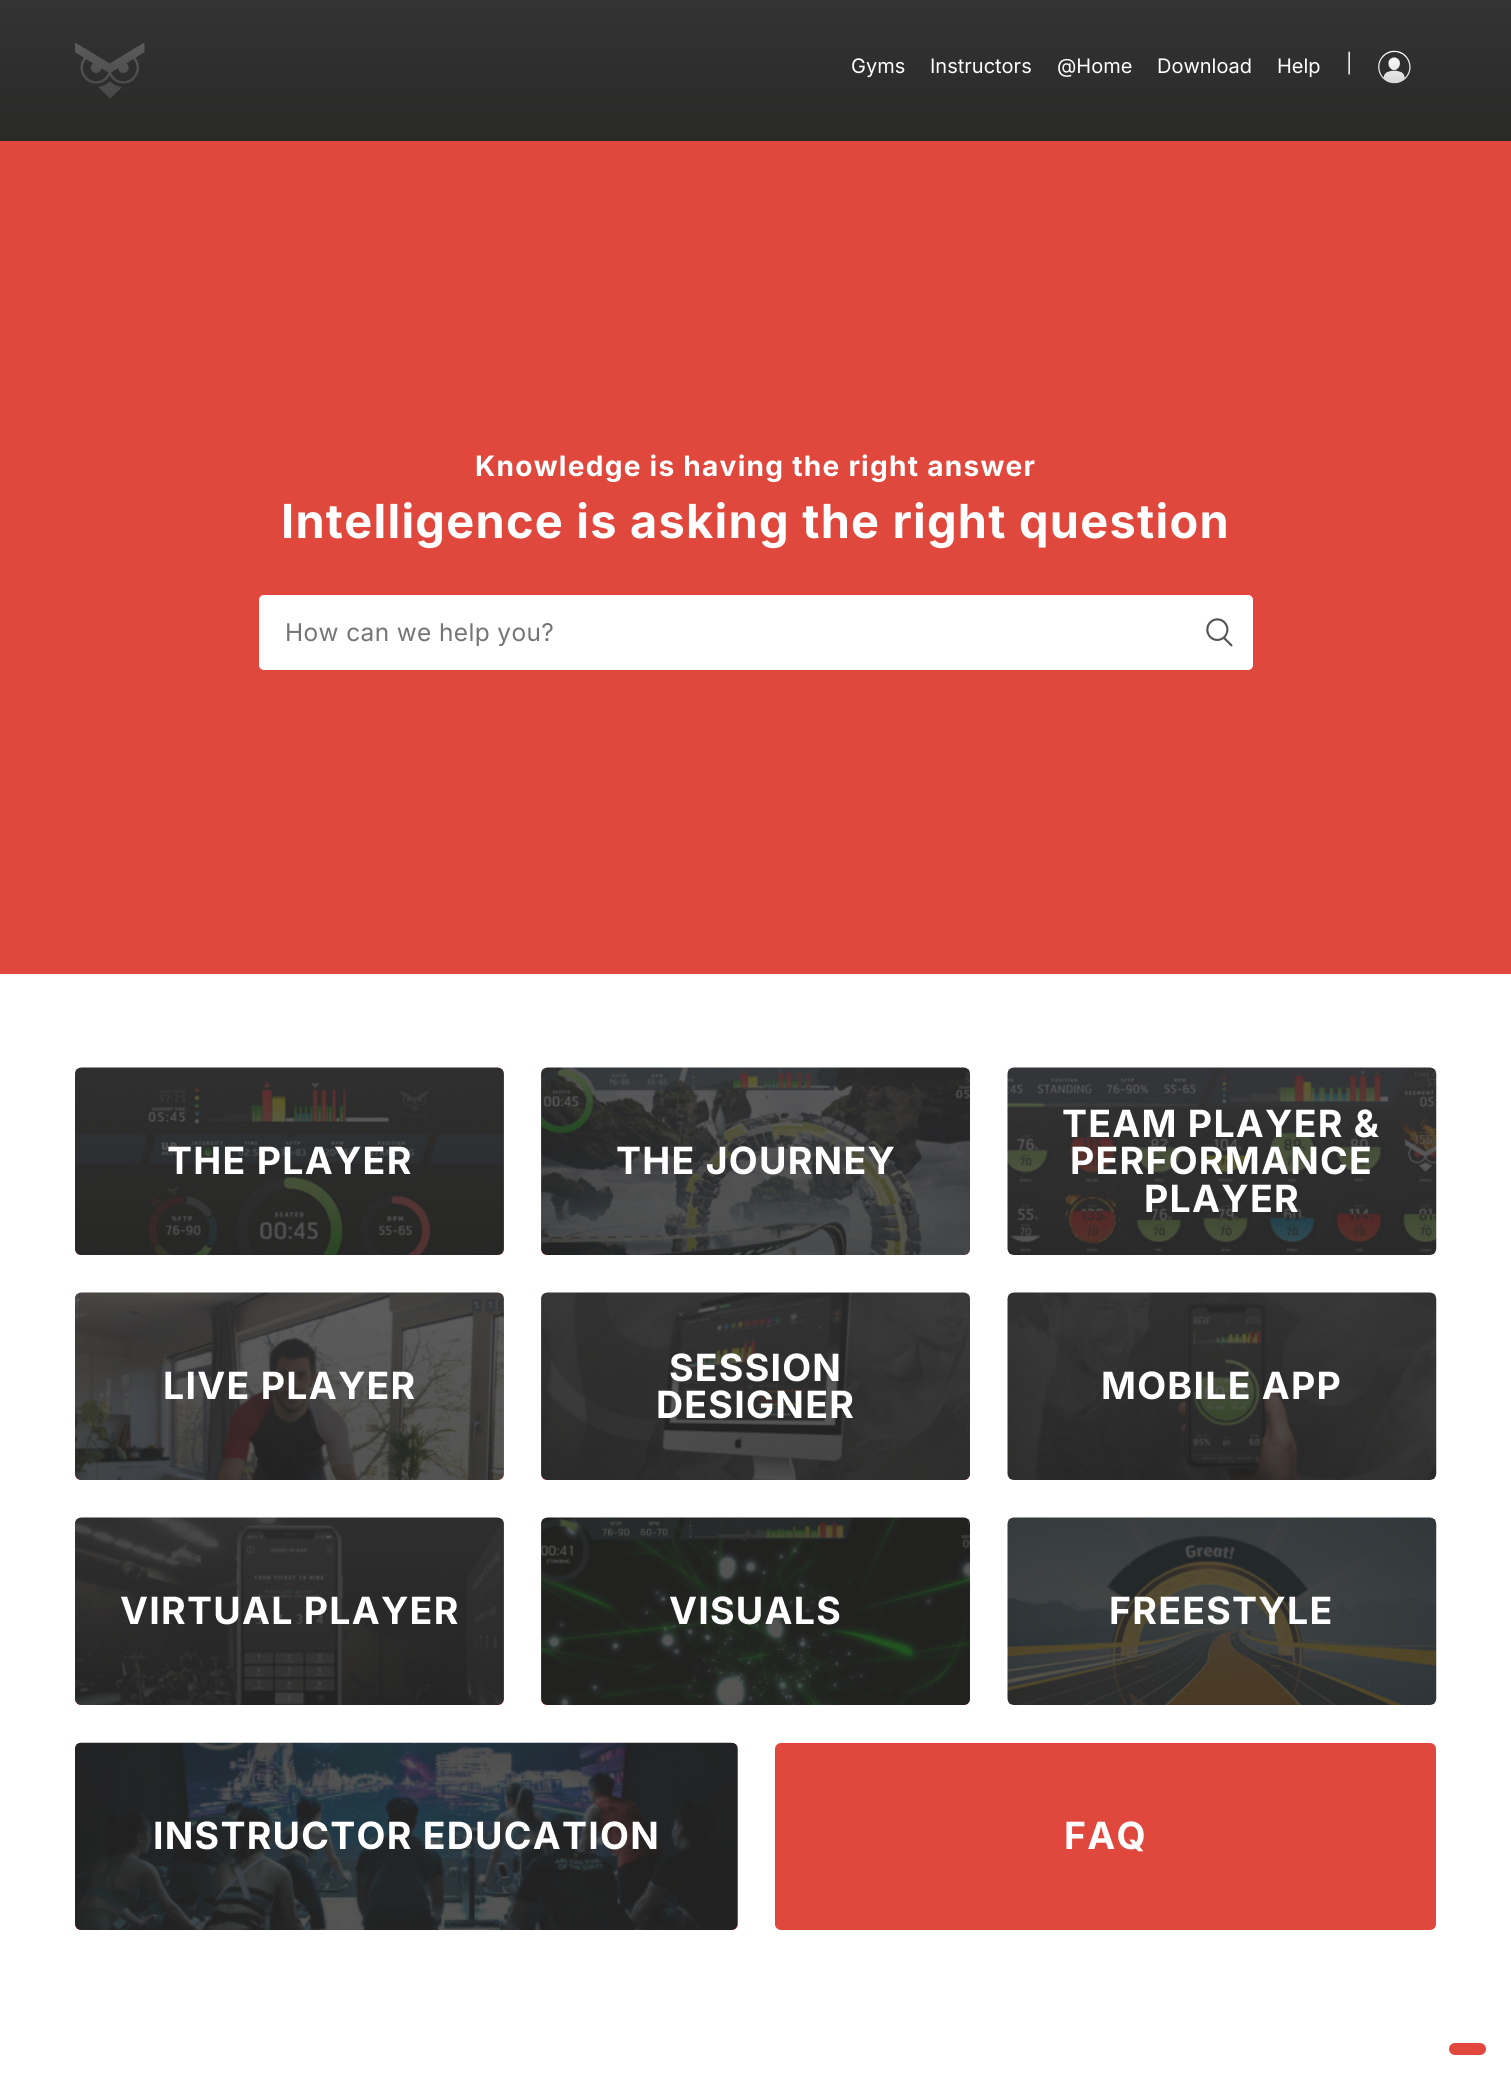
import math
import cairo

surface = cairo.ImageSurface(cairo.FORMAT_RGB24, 1511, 2079)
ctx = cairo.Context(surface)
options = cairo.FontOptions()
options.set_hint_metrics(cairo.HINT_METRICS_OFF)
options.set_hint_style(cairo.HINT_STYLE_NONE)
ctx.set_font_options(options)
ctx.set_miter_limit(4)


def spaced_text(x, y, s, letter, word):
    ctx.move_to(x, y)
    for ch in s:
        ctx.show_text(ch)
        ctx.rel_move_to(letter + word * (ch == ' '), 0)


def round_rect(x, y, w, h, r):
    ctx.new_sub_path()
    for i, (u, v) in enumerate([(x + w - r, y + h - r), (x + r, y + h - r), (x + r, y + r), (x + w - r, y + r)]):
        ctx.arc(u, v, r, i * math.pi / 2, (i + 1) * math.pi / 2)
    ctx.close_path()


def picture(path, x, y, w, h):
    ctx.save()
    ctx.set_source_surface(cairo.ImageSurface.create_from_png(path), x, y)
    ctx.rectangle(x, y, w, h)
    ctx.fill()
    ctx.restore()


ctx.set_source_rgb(1, 1, 1)
ctx.paint()
gradient = cairo.LinearGradient(756, 0, 756, 141)
gradient.add_color_stop_rgba(0, 0.2, 0.2, 0.2, 1)
gradient.add_color_stop_rgba(1, 0.161, 0.161, 0.157, 1)
ctx.set_source(gradient)
ctx.rectangle(0, 0, 1511, 141)
ctx.fill()
picture("img1.png", 75, 43, 70, 56)
ctx.select_font_face("Inter")
ctx.set_font_size(20)
ctx.set_source_rgb(1, 1, 1)
ctx.move_to(851, 73)
ctx.show_text("Gyms")
ctx.move_to(930, 73)
ctx.show_text("Instructors")
ctx.move_to(1057, 73)
ctx.show_text("@Home")
ctx.move_to(1157, 73)
ctx.show_text("Download")
ctx.move_to(1277, 73)
ctx.show_text("Help")
ctx.set_font_size(19)
ctx.move_to(1346, 70)
ctx.show_text("|")
picture("img2.png", 1378, 50, 33, 34)
ctx.set_source_rgb(0.878, 0.282, 0.243)
round_rect(1449, 2043, 37, 12, 6)
ctx.fill()
ctx.rectangle(0, 141, 1511, 833)
ctx.fill()
ctx.select_font_face("Inter", cairo.FONT_SLANT_NORMAL, cairo.FONT_WEIGHT_BOLD)
ctx.set_font_size(28.1)
ctx.set_source_rgb(1, 1, 1)
spaced_text(475, 476, "Knowledge is having the right answer", 1.25, 0)
ctx.set_font_size(46.9)
spaced_text(281, 538, "Intelligence is asking the right question", 1.25, 0)
round_rect(259.5, 595.5, 993, 74, 4.5)
ctx.fill_preserve()
ctx.set_line_width(1)
ctx.stroke()
ctx.select_font_face("Inter")
ctx.set_font_size(24.4)
ctx.set_source_rgb(0.459, 0.459, 0.459)
spaced_text(285, 641, "How can we help you?", 0.4, 0)
picture("img3.png", 1206, 618, 27, 29)
ctx.set_source_rgb(0.878, 0.282, 0.243)
round_rect(75, 1068, 429, 187, 6)
ctx.fill()
picture("img4.png", 75, 1067, 429, 188)
ctx.select_font_face("Inter", cairo.FONT_SLANT_NORMAL, cairo.FONT_WEIGHT_BOLD)
ctx.set_font_size(37.5)
ctx.set_source_rgb(1, 1, 1)
spaced_text(167, 1174, "THE PLAYER", 1.25, 0)
ctx.set_source_rgb(0.878, 0.282, 0.243)
round_rect(541, 1068, 429, 187, 6)
ctx.fill()
picture("img5.png", 541, 1067, 429, 188)
ctx.set_source_rgb(1, 1, 1)
spaced_text(616, 1174, "THE JOURNEY", 1.25, 0)
picture("img6.png", 1007, 1067, 430, 188)
spaced_text(1062, 1137, "TEAM PLAYER &", 1.25, 0)
spaced_text(1070, 1174, "PERFORMANCE", 1.25, 0)
spaced_text(1144, 1212, "PLAYER", 1.25, 0)
ctx.set_source_rgb(0.878, 0.282, 0.243)
round_rect(75, 1293, 429, 187, 6)
ctx.fill()
picture("img7.png", 75, 1292, 429, 188)
ctx.set_source_rgb(1, 1, 1)
spaced_text(163, 1399, "LIVE PLAYER", 1.25, 0)
ctx.set_source_rgb(0.878, 0.282, 0.243)
round_rect(541, 1293, 429, 187, 6)
ctx.fill()
picture("img8.png", 541, 1292, 429, 188)
ctx.set_source_rgb(1, 1, 1)
spaced_text(669, 1381, "SESSION", 1.25, 0)
spaced_text(656, 1418, "DESIGNER", 1.25, 0)
picture("img9.png", 1007, 1292, 430, 188)
spaced_text(1101, 1399, "MOBILE APP", 1.25, 0)
ctx.set_source_rgb(0.878, 0.282, 0.243)
round_rect(75, 1518, 429, 187, 6)
ctx.fill()
picture("img10.png", 75, 1517, 429, 188)
ctx.set_source_rgb(1, 1, 1)
spaced_text(120, 1624, "VIRTUAL PLAYER", 1.25, 0)
ctx.set_source_rgb(0.878, 0.282, 0.243)
round_rect(541, 1518, 429, 187, 6)
ctx.fill()
picture("img11.png", 541, 1517, 429, 188)
ctx.set_source_rgb(1, 1, 1)
spaced_text(669, 1624, "VISUALS", 1.25, 0)
picture("img12.png", 1007, 1517, 430, 188)
spaced_text(1109, 1624, "FREESTYLE", 1.25, 0)
ctx.set_source_rgb(0.878, 0.282, 0.243)
round_rect(75, 1743, 663, 187, 6)
ctx.fill()
picture("img13.png", 75, 1742, 663, 188)
ctx.set_source_rgb(1, 1, 1)
spaced_text(153, 1849, "INSTRUCTOR EDUCATION", 1.25, 0)
ctx.set_source_rgb(0.878, 0.282, 0.243)
round_rect(775, 1743, 661, 187, 6)
ctx.fill()
ctx.set_source_rgb(1, 1, 1)
spaced_text(1064, 1849, "FAQ", 1.25, 0)
surface.write_to_png("page.png")
